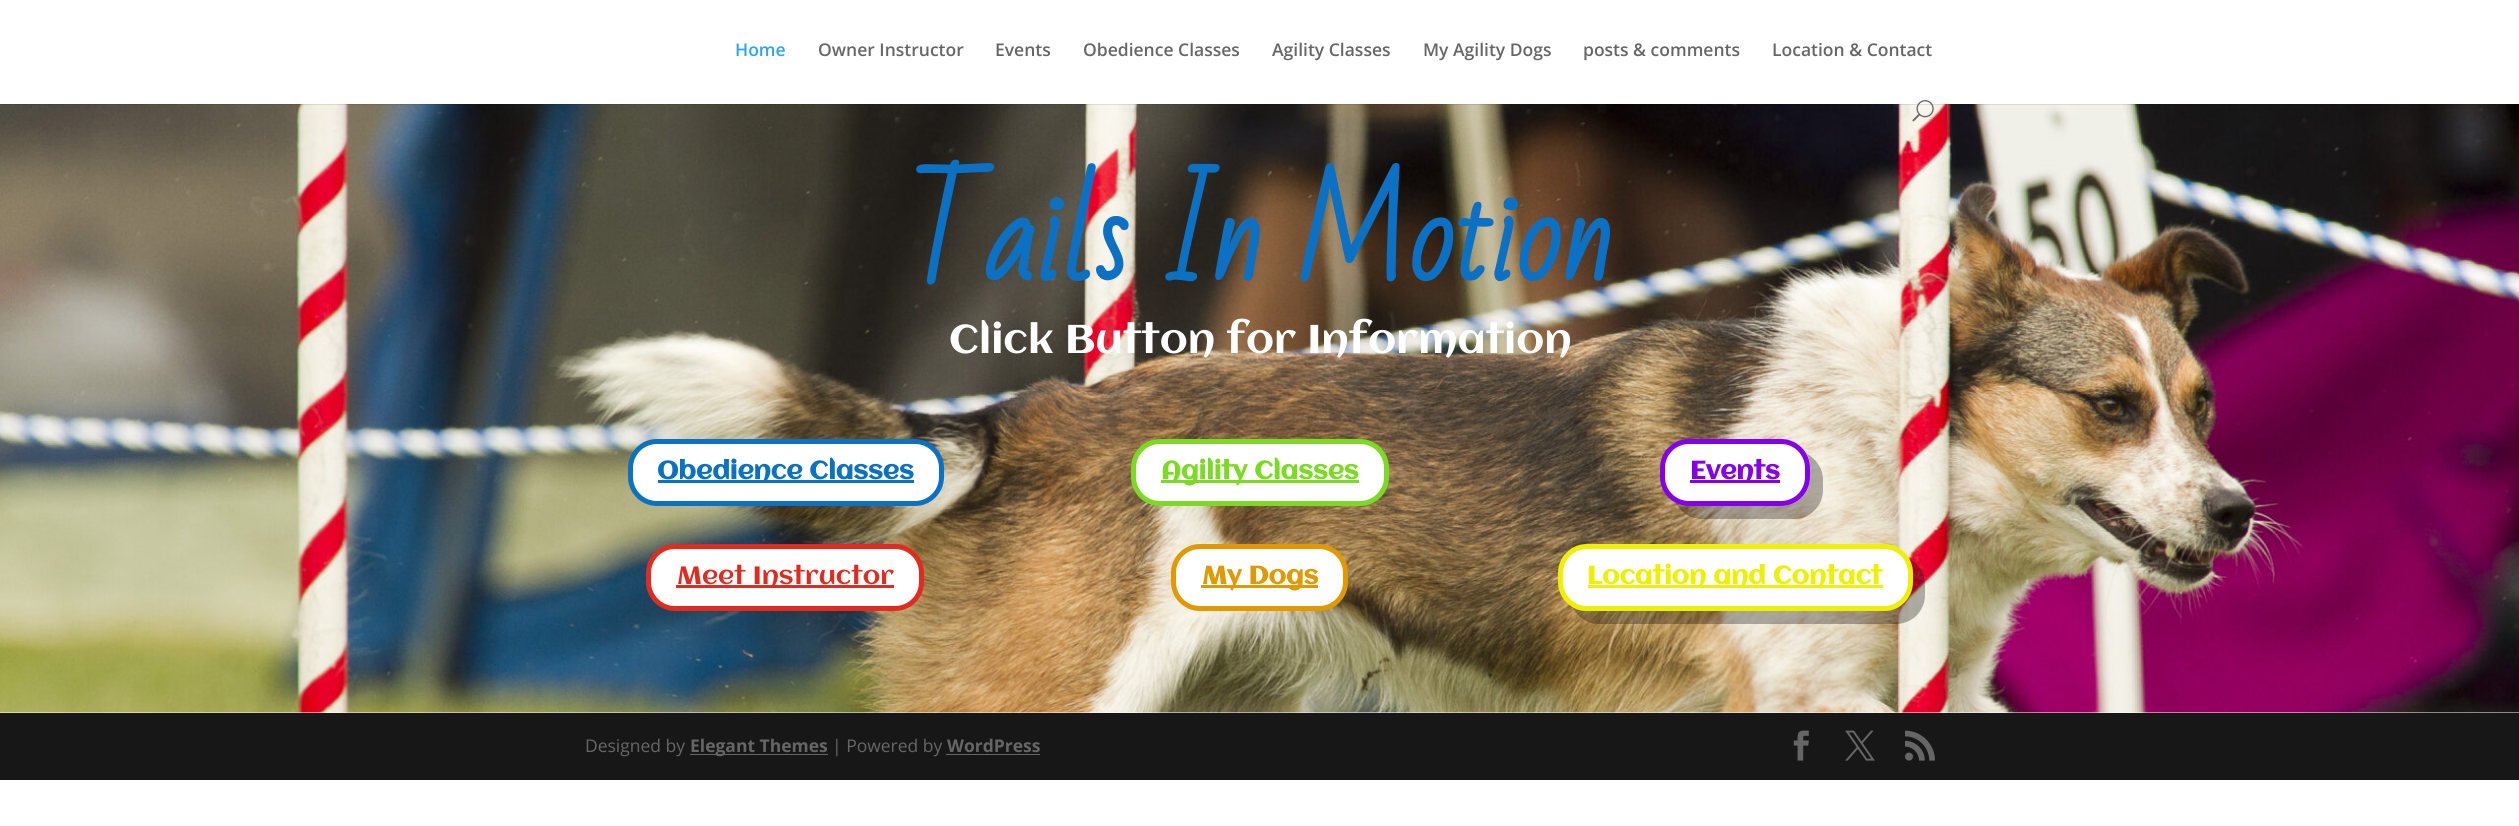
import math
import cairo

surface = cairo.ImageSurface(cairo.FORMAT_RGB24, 2519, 826)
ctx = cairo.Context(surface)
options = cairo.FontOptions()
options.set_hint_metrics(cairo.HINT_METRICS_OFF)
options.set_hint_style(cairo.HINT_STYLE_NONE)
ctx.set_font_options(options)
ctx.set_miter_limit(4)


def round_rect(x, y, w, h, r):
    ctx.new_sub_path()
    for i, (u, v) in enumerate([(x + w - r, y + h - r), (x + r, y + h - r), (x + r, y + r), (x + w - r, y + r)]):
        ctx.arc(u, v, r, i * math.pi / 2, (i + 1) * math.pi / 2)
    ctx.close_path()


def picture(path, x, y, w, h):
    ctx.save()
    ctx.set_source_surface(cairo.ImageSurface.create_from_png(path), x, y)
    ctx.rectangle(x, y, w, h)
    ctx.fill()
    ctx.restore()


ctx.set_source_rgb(1, 1, 1)
ctx.paint()
picture("img2.png", 0, 104, 2519, 609)
ctx.set_source_rgba(0, 0, 0, 0.1)
ctx.rectangle(0, 104, 2496, 1)
ctx.fill()
ctx.select_font_face("Open Sans SemiBold")
ctx.set_font_size(17.5)
ctx.set_source_rgb(0.18, 0.639, 0.949)
ctx.move_to(735, 56)
ctx.show_text("Home")
ctx.set_source_rgb(0.4, 0.4, 0.4)
ctx.move_to(818, 56)
ctx.show_text("Owner Instructor")
ctx.move_to(995, 56)
ctx.show_text("Events")
ctx.move_to(1083, 56)
ctx.show_text("Obedience Classes")
ctx.move_to(1272, 56)
ctx.show_text("Agility Classes")
ctx.move_to(1423, 56)
ctx.show_text("My Agility Dogs")
ctx.move_to(1583, 56)
ctx.show_text("posts & comments")
ctx.move_to(1772, 56)
ctx.show_text("Location & Contact")
picture("img1.png", 1912, 100, 22, 22)
ctx.select_font_face("Bad Script", cairo.FONT_SLANT_NORMAL, cairo.FONT_WEIGHT_BOLD)
ctx.set_font_size(117.5)
ctx.set_source_rgb(0.047, 0.443, 0.765)
ctx.move_to(907, 280)
ctx.show_text("Tails In Motion")
ctx.select_font_face("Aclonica")
ctx.set_font_size(40)
ctx.set_source_rgb(1, 1, 1)
ctx.move_to(949, 353)
ctx.show_text("Click Button for Information")
round_rect(630.5, 441.5, 311, 62, 26.5)
ctx.fill_preserve()
ctx.set_source_rgb(0.047, 0.443, 0.765)
ctx.set_line_width(5)
ctx.stroke()
ctx.rectangle(658, 480, 256, 3)
ctx.fill()
ctx.select_font_face("Aclonica", cairo.FONT_SLANT_NORMAL, cairo.FONT_WEIGHT_BOLD)
ctx.set_font_size(25)
ctx.move_to(657, 479)
ctx.show_text("Obedience Classes")
ctx.set_source_rgb(1, 1, 1)
round_rect(648.5, 546.5, 273, 62, 26.5)
ctx.fill_preserve()
ctx.set_source_rgb(0.878, 0.169, 0.125)
ctx.stroke()
ctx.rectangle(676, 585, 218, 3)
ctx.fill()
ctx.select_font_face("Aclonica")
ctx.move_to(677, 584)
ctx.show_text("Meet Instructor")
ctx.set_source_rgb(1, 1, 1)
round_rect(1133.5, 441.5, 253, 62, 26.5)
ctx.fill_preserve()
ctx.set_source_rgb(0.486, 0.855, 0.141)
ctx.stroke()
ctx.rectangle(1161, 480, 198, 3)
ctx.fill()
ctx.select_font_face("Aclonica", cairo.FONT_SLANT_NORMAL, cairo.FONT_WEIGHT_BOLD)
ctx.move_to(1161, 479)
ctx.show_text("Agility Classes")
ctx.set_source_rgb(1, 1, 1)
round_rect(1173.5, 546.5, 172, 62, 26.5)
ctx.fill_preserve()
ctx.set_source_rgb(0.878, 0.6, 0)
ctx.stroke()
ctx.rectangle(1201, 585, 117, 3)
ctx.fill()
ctx.move_to(1202, 584)
ctx.show_text("My Dogs")
ctx.set_source_rgba(0, 0, 0, 0.3)
ctx.new_path()
ctx.move_to(1676, 503)
ctx.curve_to(1681, 513, 1691, 519, 1702, 519)
ctx.line_to(1794, 519)
ctx.curve_to(1810, 519, 1823, 506, 1823, 490)
ctx.line_to(1823, 480)
ctx.curve_to(1823, 468, 1816, 459, 1807, 454)
ctx.curve_to(1809, 458, 1810, 463, 1810, 468)
ctx.line_to(1810, 478)
ctx.curve_to(1810, 493, 1797, 506, 1781, 506)
ctx.line_to(1689, 506)
ctx.curve_to(1684, 506, 1680, 505, 1676, 503)
ctx.close_path()
ctx.fill()
ctx.set_source_rgb(1, 1, 1)
round_rect(1662.5, 441.5, 145, 62, 26.5)
ctx.fill_preserve()
ctx.set_source_rgb(0.514, 0, 0.914)
ctx.stroke()
ctx.rectangle(1690, 480, 90, 3)
ctx.fill()
ctx.move_to(1690, 479)
ctx.show_text("Events")
ctx.set_source_rgba(0, 0, 0, 0.3)
ctx.new_path()
ctx.move_to(1573, 608)
ctx.curve_to(1578, 618, 1588, 624, 1599, 624)
ctx.line_to(1896, 624)
ctx.curve_to(1912, 624, 1925, 611, 1925, 595)
ctx.line_to(1925, 585)
ctx.curve_to(1925, 574, 1919, 564, 1909, 559)
ctx.curve_to(1911, 563, 1912, 568, 1912, 572)
ctx.line_to(1912, 582)
ctx.curve_to(1912, 598, 1900, 611, 1884, 611)
ctx.line_to(1586, 611)
ctx.curve_to(1582, 611, 1577, 610, 1573, 608)
ctx.close_path()
ctx.fill()
ctx.set_source_rgb(1, 1, 1)
round_rect(1560.5, 546.5, 350, 62, 26.5)
ctx.fill_preserve()
ctx.set_source_rgb(0.929, 0.941, 0)
ctx.stroke()
ctx.rectangle(1588, 585, 295, 3)
ctx.fill()
ctx.move_to(1587, 584)
ctx.show_text("Location and Contact")
ctx.set_source_rgb(0.09, 0.09, 0.09)
ctx.rectangle(0, 713, 2519, 67)
ctx.fill()
ctx.select_font_face("Open Sans")
ctx.set_font_size(17.5)
ctx.set_source_rgb(0.4, 0.4, 0.4)
ctx.move_to(585, 752)
ctx.show_text("Designed by")
ctx.rectangle(690, 754, 138, 1)
ctx.fill()
ctx.select_font_face("Open Sans", cairo.FONT_SLANT_NORMAL, cairo.FONT_WEIGHT_BOLD)
ctx.move_to(690, 752)
ctx.show_text("Elegant Themes")
ctx.select_font_face("Open Sans")
ctx.move_to(832, 752)
ctx.show_text("| Powered by")
ctx.select_font_face("Open Sans", cairo.FONT_SLANT_NORMAL, cairo.FONT_WEIGHT_BOLD)
ctx.move_to(947, 752)
ctx.show_text("WordPress")
ctx.rectangle(946, 754, 94, 1)
ctx.fill()
picture("img3.png", 1793, 730, 16, 31)
picture("img4.png", 1845, 730, 30, 31)
picture("img5.png", 1905, 730, 30, 31)
surface.write_to_png("page.png")
